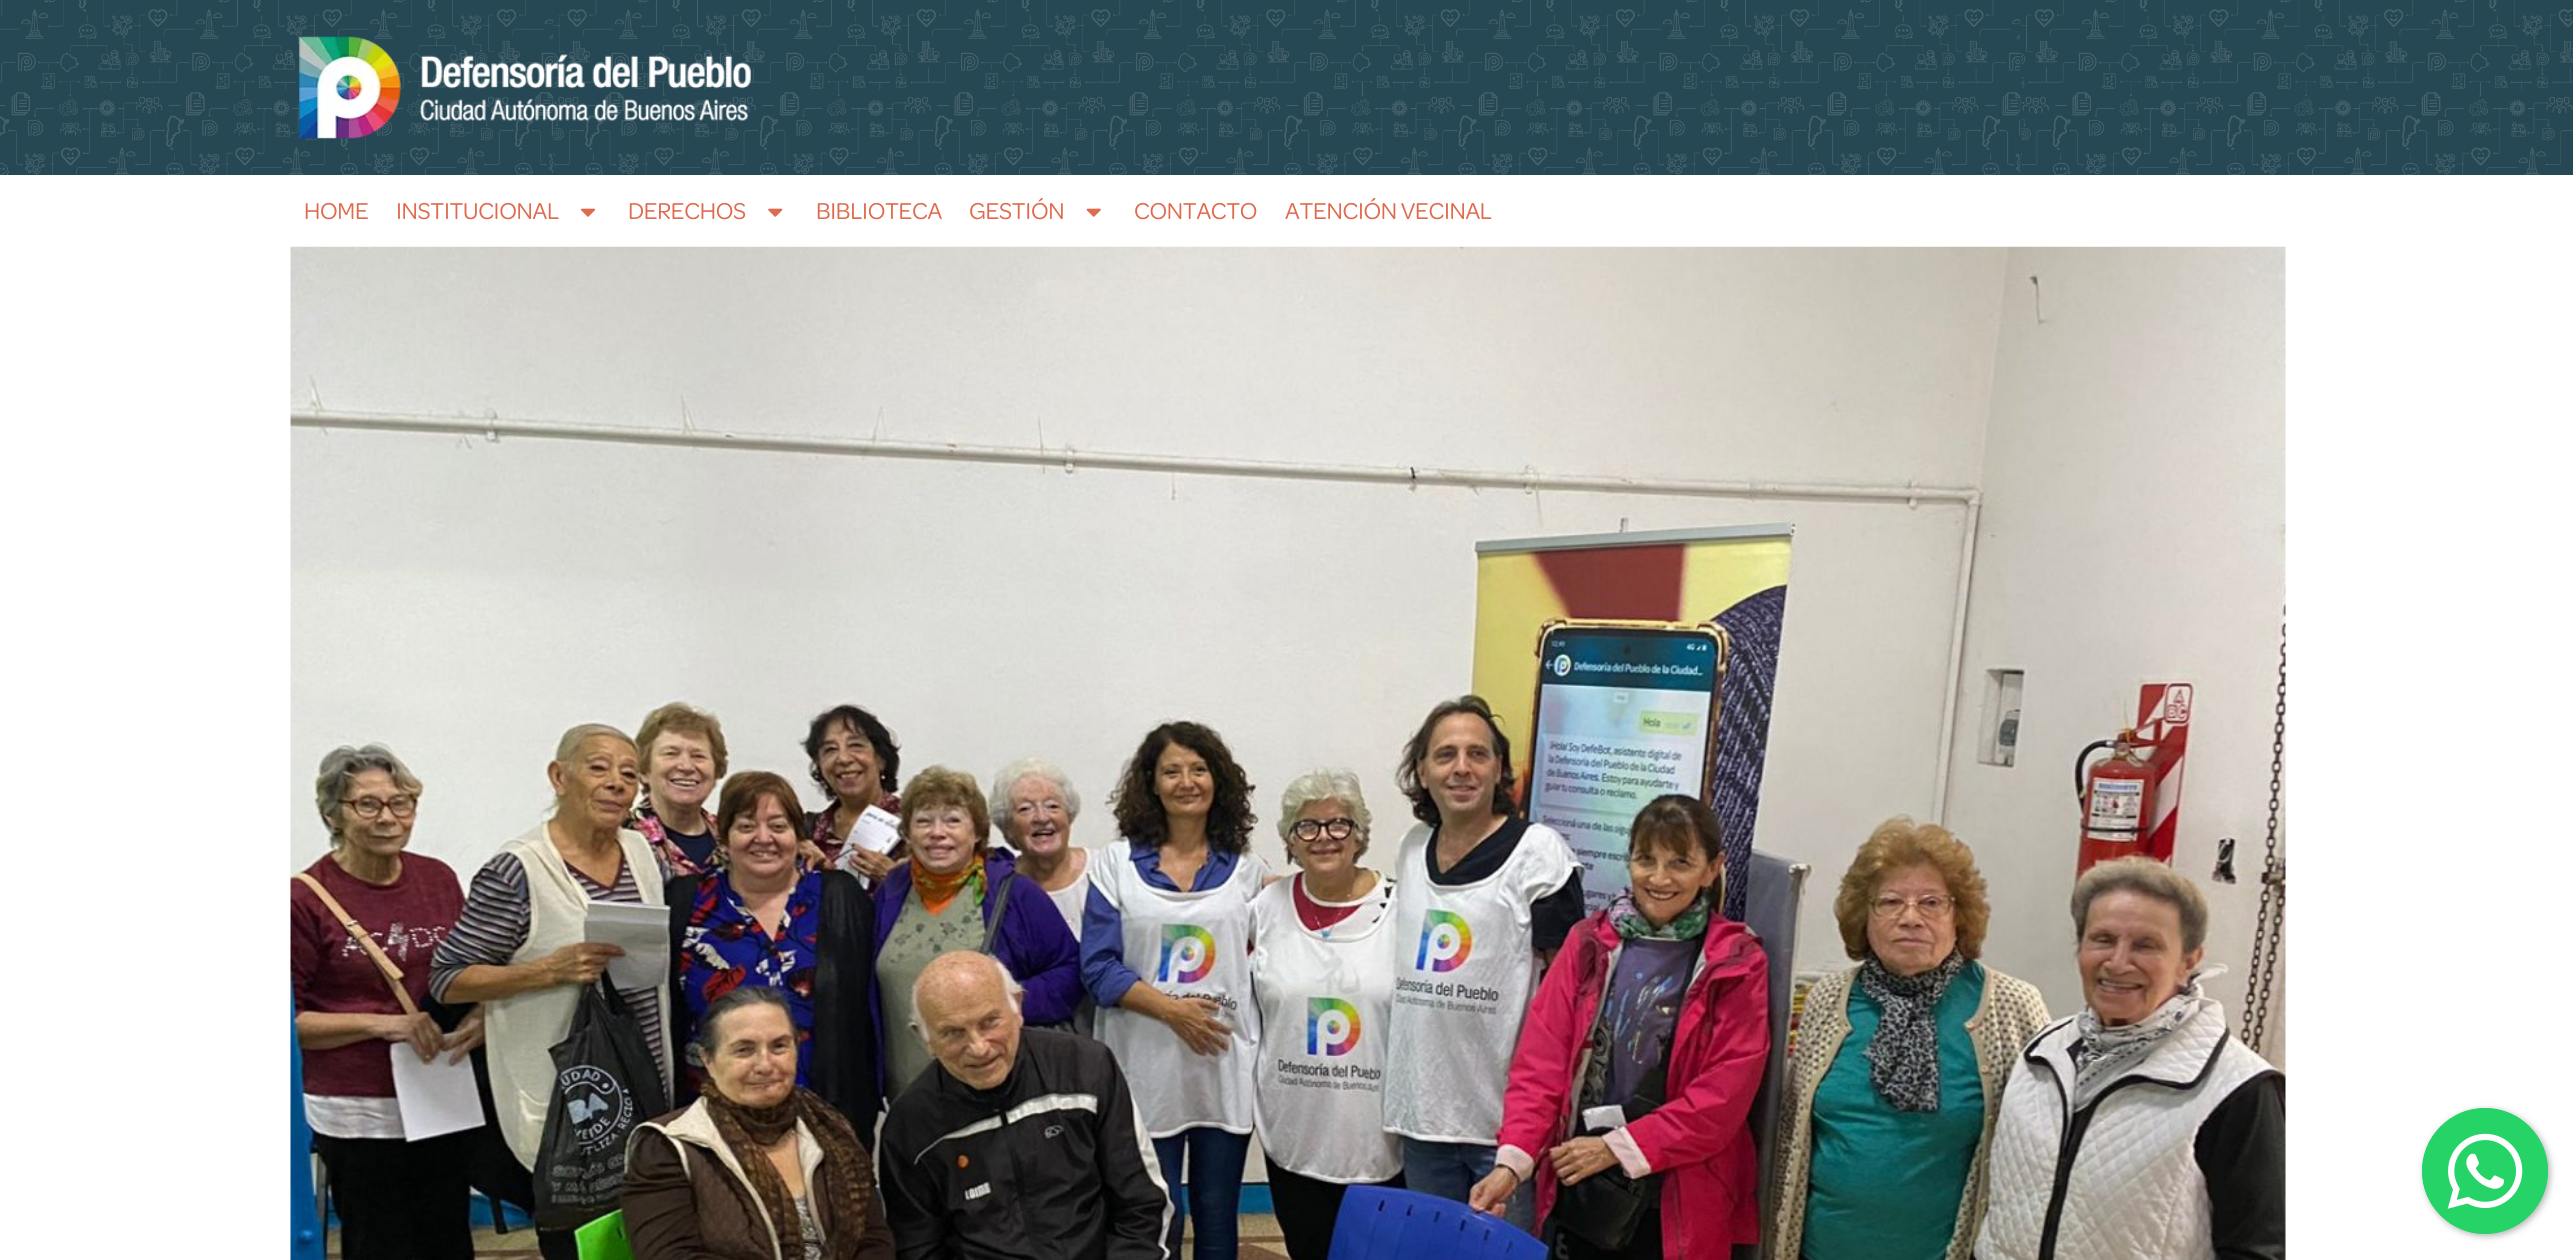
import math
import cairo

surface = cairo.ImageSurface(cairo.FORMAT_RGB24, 2573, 1260)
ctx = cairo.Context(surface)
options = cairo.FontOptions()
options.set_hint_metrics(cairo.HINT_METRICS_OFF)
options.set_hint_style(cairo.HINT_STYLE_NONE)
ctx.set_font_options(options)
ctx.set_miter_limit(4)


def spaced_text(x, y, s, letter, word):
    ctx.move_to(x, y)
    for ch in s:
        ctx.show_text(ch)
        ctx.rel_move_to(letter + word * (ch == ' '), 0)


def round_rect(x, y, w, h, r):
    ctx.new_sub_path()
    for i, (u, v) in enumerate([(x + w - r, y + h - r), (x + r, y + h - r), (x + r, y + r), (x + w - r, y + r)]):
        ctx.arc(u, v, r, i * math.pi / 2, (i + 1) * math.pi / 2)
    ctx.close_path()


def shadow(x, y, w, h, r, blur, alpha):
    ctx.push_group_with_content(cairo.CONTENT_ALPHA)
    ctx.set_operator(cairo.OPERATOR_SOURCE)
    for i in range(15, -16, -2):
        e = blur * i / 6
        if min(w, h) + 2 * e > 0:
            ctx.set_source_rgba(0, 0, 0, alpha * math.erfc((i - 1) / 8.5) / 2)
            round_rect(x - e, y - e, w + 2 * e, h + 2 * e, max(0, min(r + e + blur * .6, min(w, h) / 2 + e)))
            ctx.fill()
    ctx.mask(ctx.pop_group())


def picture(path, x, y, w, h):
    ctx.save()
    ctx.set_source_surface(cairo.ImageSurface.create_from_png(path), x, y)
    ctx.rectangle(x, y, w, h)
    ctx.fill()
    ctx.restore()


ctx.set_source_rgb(1, 1, 1)
ctx.paint()
ctx.set_source_rgb(0.149, 0.278, 0.329)
ctx.rectangle(0, 0, 2573, 175)
ctx.fill()
picture("img1.png", 0, 0, 2573, 175)
picture("img2.png", 299, 36, 452, 103)
ctx.select_font_face("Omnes")
ctx.set_font_size(24.5)
ctx.set_source_rgb(0.875, 0.42, 0.306)
spaced_text(304, 219, "HOME", -0.3, 0)
spaced_text(396, 219, "INSTITUCIONAL", -0.3, 0)
picture("img3.png", 580, 208, 16, 9)
spaced_text(628, 219, "DERECHOS", -0.3, 0)
picture("img4.png", 768, 208, 15, 9)
spaced_text(816, 219, "BIBLIOTECA", -0.3, 0)
spaced_text(969, 219, "GESTIÓN", -0.3, 0)
picture("img5.png", 1086, 208, 15, 9)
spaced_text(1134, 219, "CONTACTO", -0.3, 0)
spaced_text(1285, 219, "ATENCIÓN VECINAL", -0.3, 0)
picture("img6.png", 290, 246, 1996, 1014)
ctx.set_source_rgb(0.235, 0.235, 0.235)
shadow(2424, 1110, 126, 126, 63, 3.5, 0.4)
ctx.set_source_rgb(0.145, 0.827, 0.4)
ctx.arc(2485, 1171, 63, 0, 2 * math.pi)
ctx.fill()
picture("img7.png", 2422, 1108, 126, 126)
surface.write_to_png("page.png")
